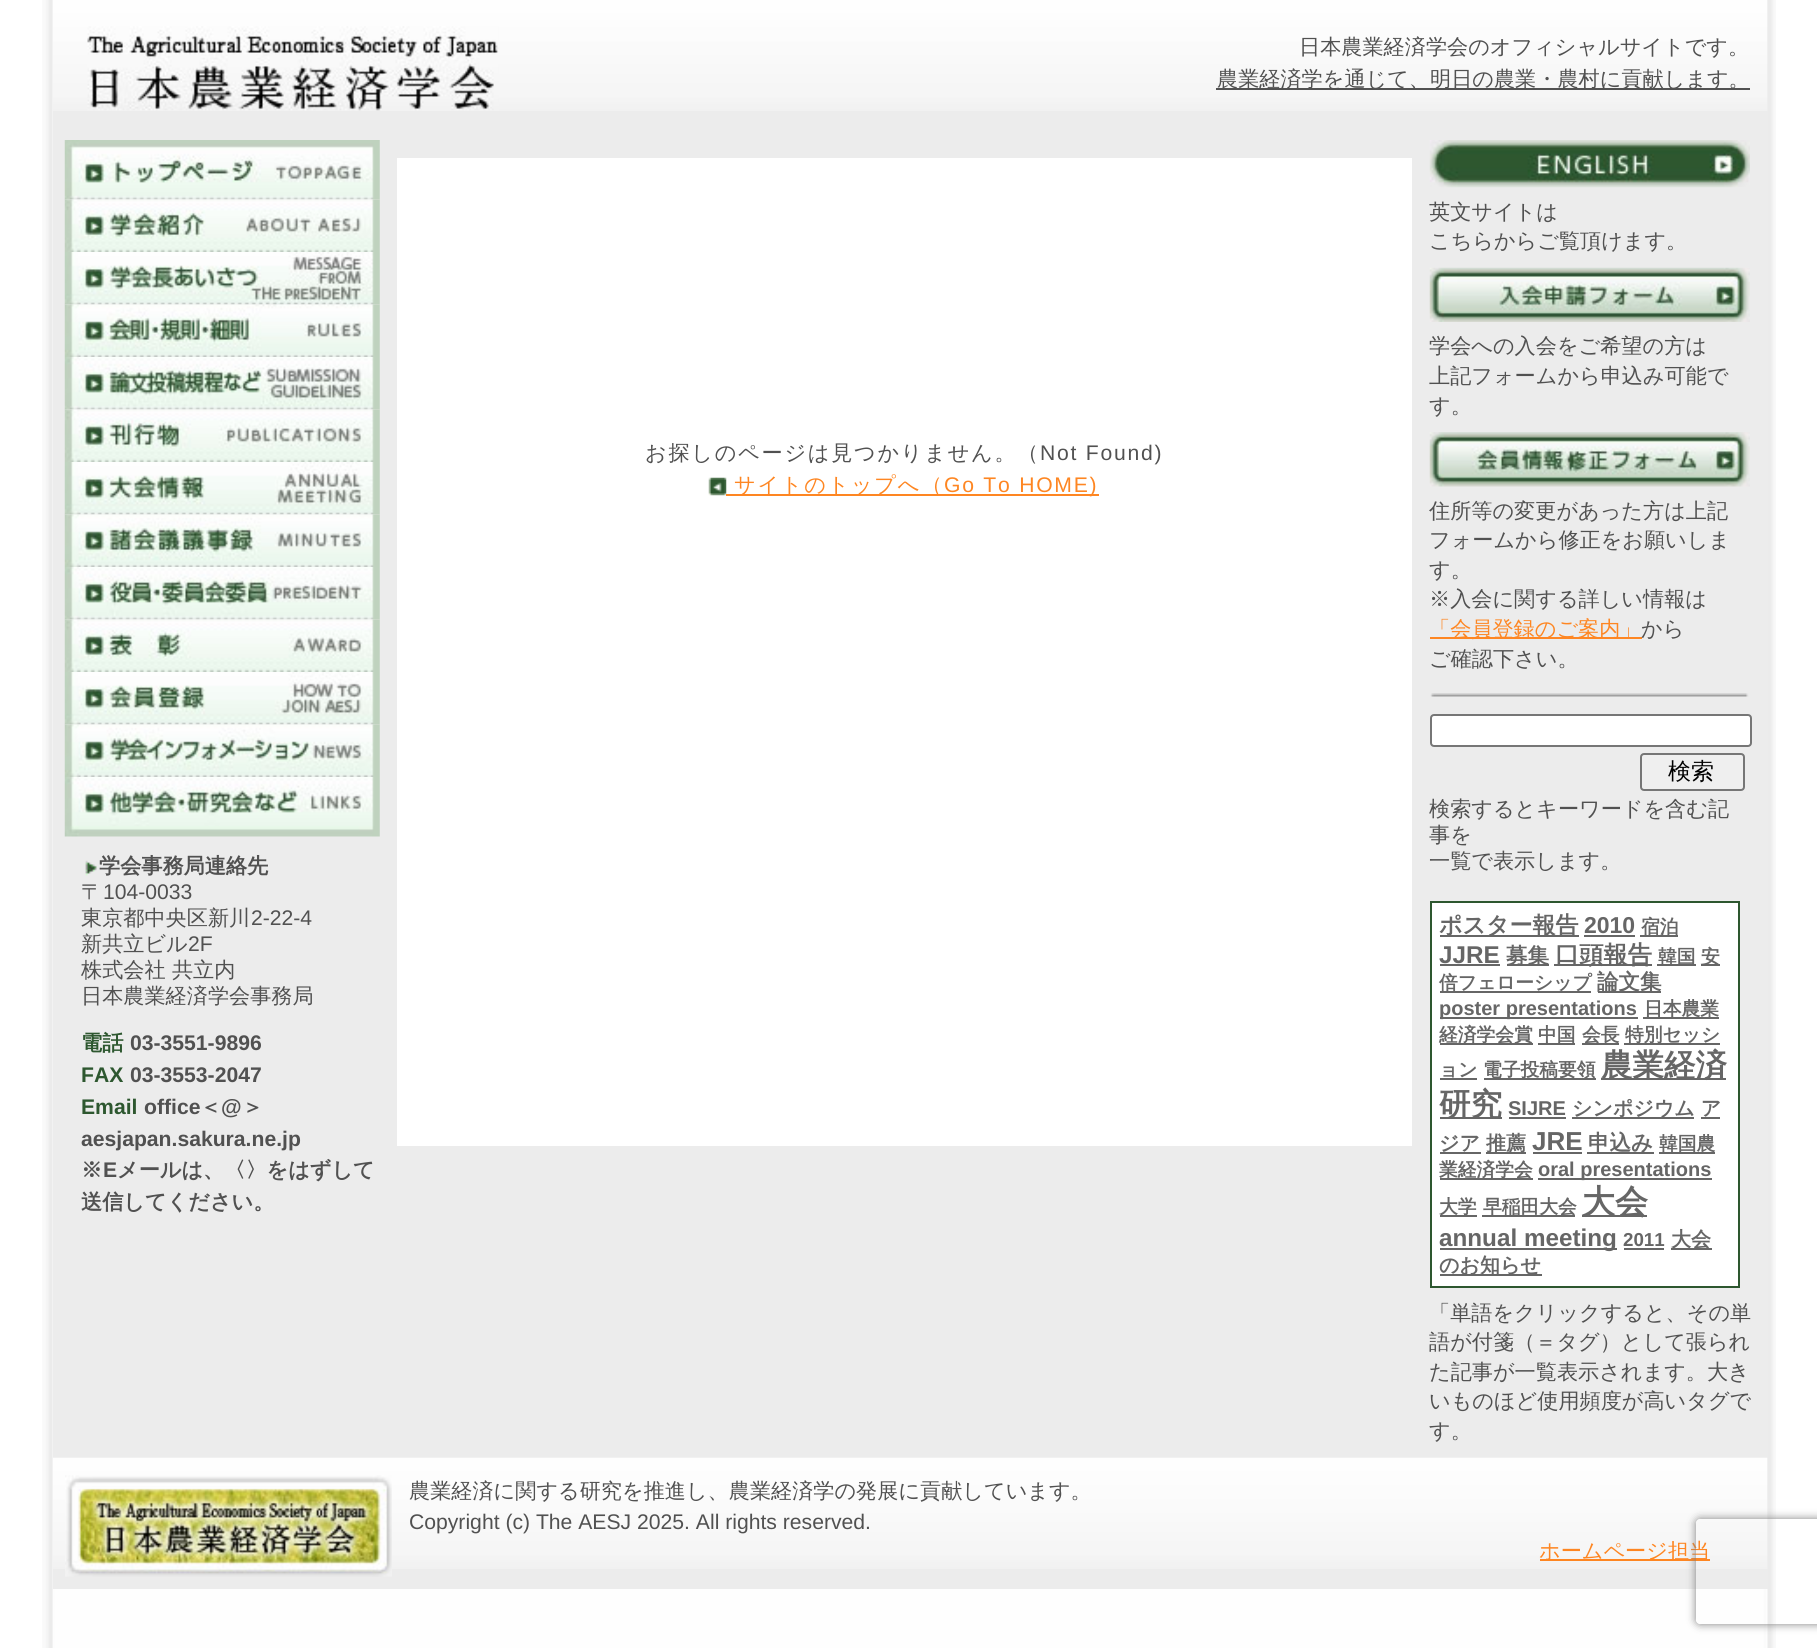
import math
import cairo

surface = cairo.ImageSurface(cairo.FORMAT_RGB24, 1817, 1648)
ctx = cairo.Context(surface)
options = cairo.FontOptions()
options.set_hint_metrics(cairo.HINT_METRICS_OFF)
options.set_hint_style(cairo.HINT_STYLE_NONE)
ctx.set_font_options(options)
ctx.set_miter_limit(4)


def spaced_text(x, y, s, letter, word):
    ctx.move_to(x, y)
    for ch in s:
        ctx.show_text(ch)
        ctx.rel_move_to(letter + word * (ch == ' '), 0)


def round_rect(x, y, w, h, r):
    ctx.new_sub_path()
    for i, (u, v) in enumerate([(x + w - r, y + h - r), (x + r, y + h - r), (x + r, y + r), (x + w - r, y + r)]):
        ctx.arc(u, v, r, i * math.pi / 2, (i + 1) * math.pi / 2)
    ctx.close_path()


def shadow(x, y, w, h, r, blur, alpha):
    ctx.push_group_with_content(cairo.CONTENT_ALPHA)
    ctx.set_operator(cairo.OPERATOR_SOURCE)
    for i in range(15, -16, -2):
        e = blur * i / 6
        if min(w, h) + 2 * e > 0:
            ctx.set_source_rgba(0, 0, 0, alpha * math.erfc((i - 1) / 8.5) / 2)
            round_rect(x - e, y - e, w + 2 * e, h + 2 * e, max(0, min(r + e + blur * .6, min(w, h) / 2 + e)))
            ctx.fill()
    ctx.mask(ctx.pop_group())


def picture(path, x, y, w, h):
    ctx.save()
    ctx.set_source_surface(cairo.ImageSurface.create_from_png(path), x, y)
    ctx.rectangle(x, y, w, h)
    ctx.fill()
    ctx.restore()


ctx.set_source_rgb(1, 1, 1)
ctx.paint()
picture("img1.png", 42, 0, 1734, 1648)
ctx.set_source_rgb(0.925, 0.925, 0.925)
ctx.rectangle(53, 0, 1715, 1589)
ctx.fill()
picture("img2.png", 53, 0, 1715, 111)
picture("img3.png", 87, 26, 412, 85)
ctx.select_font_face("WenQuanYi Zen Hei Medium")
ctx.set_font_size(21.15)
ctx.set_source_rgb(0.318, 0.318, 0.318)
ctx.move_to(1299, 54)
ctx.show_text("日本農業経済学会のオフィシャルサイトです。")
ctx.rectangle(1216, 88, 534, 2)
ctx.fill()
ctx.move_to(1217, 86)
ctx.show_text("農業経済学を通じて、明日の農業・農村に貢献します。")
ctx.set_source_rgb(1, 1, 1)
ctx.rectangle(397, 158, 1015, 988)
ctx.fill()
ctx.set_source_rgb(0.318, 0.318, 0.318)
spaced_text(645, 460, "お探しのページは見つかりません。（", 1.75, 0)
ctx.select_font_face("Liberation Sans")
spaced_text(1040, 460, "Not Found)", 1.75, 0)
picture("img4.png", 708, 477, 19, 19)
ctx.set_source_rgb(0.996, 0.525, 0.133)
ctx.rectangle(726, 494, 373, 2)
ctx.fill()
ctx.select_font_face("WenQuanYi Zen Hei Medium")
spaced_text(734, 492, "サイトのトップへ（", 1.75, 0)
ctx.select_font_face("Liberation Sans")
spaced_text(944, 492, "Go To HOME)", 1.75, 0)
picture("img5.png", 64, 140, 316, 60)
picture("img6.png", 64, 199, 316, 53)
picture("img7.png", 64, 252, 316, 53)
picture("img8.png", 64, 304, 316, 53)
picture("img9.png", 64, 357, 316, 53)
picture("img10.png", 64, 409, 316, 53)
picture("img11.png", 64, 462, 316, 53)
picture("img12.png", 64, 514, 316, 53)
picture("img13.png", 64, 567, 316, 53)
picture("img14.png", 64, 619, 316, 53)
picture("img15.png", 64, 672, 316, 53)
picture("img16.png", 64, 724, 316, 53)
picture("img17.png", 64, 777, 316, 60)
picture("img18.png", 85, 860, 12, 16)
ctx.select_font_face("WenQuanYi Zen Hei", cairo.FONT_SLANT_NORMAL, cairo.FONT_WEIGHT_BOLD)
ctx.set_source_rgb(0.318, 0.318, 0.318)
ctx.move_to(99, 873)
ctx.show_text("学会事務局連絡先")
ctx.select_font_face("WenQuanYi Zen Hei Medium")
ctx.move_to(81, 899)
ctx.show_text("〒")
ctx.select_font_face("Liberation Sans")
ctx.move_to(103, 899)
ctx.show_text("104-0033")
ctx.select_font_face("WenQuanYi Zen Hei Medium")
ctx.move_to(81, 925)
ctx.show_text("東京都中央区新川")
ctx.select_font_face("Liberation Sans")
ctx.move_to(251, 925)
ctx.show_text("2-22-4")
ctx.select_font_face("WenQuanYi Zen Hei Medium")
ctx.move_to(81, 951)
ctx.show_text("新共立ビル")
ctx.select_font_face("Liberation Sans")
ctx.move_to(188, 951)
ctx.show_text("2F")
ctx.select_font_face("WenQuanYi Zen Hei Medium")
ctx.move_to(81, 977)
ctx.show_text("株式会社 共立内")
ctx.move_to(81, 1003)
ctx.show_text("日本農業経済学会事務局")
ctx.select_font_face("WenQuanYi Zen Hei", cairo.FONT_SLANT_NORMAL, cairo.FONT_WEIGHT_BOLD)
ctx.set_source_rgb(0.176, 0.341, 0.184)
ctx.move_to(81, 1050)
ctx.show_text("電話")
ctx.select_font_face("Liberation Sans", cairo.FONT_SLANT_NORMAL, cairo.FONT_WEIGHT_BOLD)
ctx.set_source_rgb(0.318, 0.318, 0.318)
ctx.move_to(130, 1050)
ctx.show_text("03-3551-9896")
ctx.set_source_rgb(0.176, 0.341, 0.184)
ctx.move_to(81, 1082)
ctx.show_text("FAX")
ctx.set_source_rgb(0.318, 0.318, 0.318)
ctx.move_to(130, 1082)
ctx.show_text("03-3553-2047")
ctx.set_source_rgb(0.176, 0.341, 0.184)
ctx.move_to(81, 1114)
ctx.show_text("Email")
ctx.set_source_rgb(0.318, 0.318, 0.318)
ctx.move_to(144, 1114)
ctx.show_text("office")
ctx.select_font_face("WenQuanYi Zen Hei", cairo.FONT_SLANT_NORMAL, cairo.FONT_WEIGHT_BOLD)
ctx.move_to(200, 1114)
ctx.show_text("＜")
ctx.select_font_face("Liberation Sans", cairo.FONT_SLANT_NORMAL, cairo.FONT_WEIGHT_BOLD)
ctx.move_to(221, 1114)
ctx.show_text("@")
ctx.select_font_face("WenQuanYi Zen Hei", cairo.FONT_SLANT_NORMAL, cairo.FONT_WEIGHT_BOLD)
ctx.move_to(242, 1114)
ctx.show_text("＞")
ctx.select_font_face("Liberation Sans", cairo.FONT_SLANT_NORMAL, cairo.FONT_WEIGHT_BOLD)
ctx.move_to(81, 1146)
ctx.show_text("aesjapan.sakura.ne.jp")
ctx.select_font_face("WenQuanYi Zen Hei", cairo.FONT_SLANT_NORMAL, cairo.FONT_WEIGHT_BOLD)
ctx.move_to(81, 1177)
ctx.show_text("※")
ctx.select_font_face("Liberation Sans", cairo.FONT_SLANT_NORMAL, cairo.FONT_WEIGHT_BOLD)
ctx.move_to(103, 1177)
ctx.show_text("E")
ctx.select_font_face("WenQuanYi Zen Hei", cairo.FONT_SLANT_NORMAL, cairo.FONT_WEIGHT_BOLD)
ctx.move_to(117, 1177)
ctx.show_text("メールは、〈〉をはずして")
ctx.move_to(81, 1209)
ctx.show_text("送信してください。")
picture("img19.png", 1429, 140, 321, 48)
ctx.select_font_face("WenQuanYi Zen Hei Medium")
ctx.move_to(1429, 219)
ctx.show_text("英文サイトは")
ctx.move_to(1429, 248)
ctx.show_text("こちらからご覧頂けます。")
picture("img20.png", 1429, 267, 321, 55)
ctx.move_to(1429, 353)
ctx.show_text("学会への入会をご希望の方は")
ctx.move_to(1429, 383)
ctx.show_text("上記フォームから申込み可能で")
ctx.move_to(1429, 413)
ctx.show_text("す。")
picture("img21.png", 1429, 432, 321, 55)
ctx.move_to(1429, 518)
ctx.show_text("住所等の変更があった方は上記")
ctx.move_to(1429, 547)
ctx.show_text("フォームから修正をお願いしま")
ctx.move_to(1429, 577)
ctx.show_text("す。")
ctx.move_to(1429, 606)
ctx.show_text("※入会に関する詳しい情報は")
ctx.set_source_rgb(0.996, 0.525, 0.133)
ctx.rectangle(1430, 637, 212, 2)
ctx.fill()
ctx.move_to(1429, 636)
ctx.show_text("「会員登録のご案内」")
ctx.set_source_rgb(0.318, 0.318, 0.318)
ctx.move_to(1641, 636)
ctx.show_text("から")
ctx.move_to(1429, 666)
ctx.show_text("ご確認下さい。")
picture("img22.png", 1430, 693, 319, 4)
ctx.set_source_rgb(1, 1, 1)
round_rect(1431, 715, 320, 31, 3)
ctx.fill_preserve()
ctx.set_source_rgb(0.463, 0.463, 0.463)
ctx.stroke()
ctx.set_source_rgb(0.937, 0.937, 0.937)
round_rect(1641, 754, 103, 36, 3)
ctx.fill_preserve()
ctx.set_source_rgb(0.463, 0.463, 0.463)
ctx.stroke()
ctx.set_font_size(23)
ctx.set_source_rgb(0, 0, 0)
ctx.move_to(1668, 779)
ctx.show_text("検索")
ctx.set_font_size(21.15)
ctx.set_source_rgb(0.318, 0.318, 0.318)
ctx.move_to(1429, 816)
ctx.show_text("検索するとキーワードを含む記")
ctx.move_to(1429, 842)
ctx.show_text("事を")
ctx.move_to(1429, 868)
ctx.show_text("一覧で表示します。")
ctx.set_source_rgb(1, 1, 1)
ctx.rectangle(1431, 902, 308, 385)
ctx.fill_preserve()
ctx.set_source_rgb(0.176, 0.341, 0.184)
ctx.stroke()
ctx.set_source_rgb(0.4, 0.4, 0.4)
ctx.rectangle(1440, 935, 139, 2)
ctx.fill()
ctx.select_font_face("WenQuanYi Zen Hei", cairo.FONT_SLANT_NORMAL, cairo.FONT_WEIGHT_BOLD)
ctx.set_font_size(23)
ctx.move_to(1439, 933)
ctx.show_text("ポスター報告")
ctx.select_font_face("Liberation Sans", cairo.FONT_SLANT_NORMAL, cairo.FONT_WEIGHT_BOLD)
ctx.move_to(1584, 933)
ctx.show_text("2010")
ctx.rectangle(1584, 935, 51, 2)
ctx.fill()
ctx.rectangle(1640, 935, 38, 2)
ctx.fill()
ctx.select_font_face("WenQuanYi Zen Hei", cairo.FONT_SLANT_NORMAL, cairo.FONT_WEIGHT_BOLD)
ctx.set_font_size(18.75)
ctx.move_to(1641, 933)
ctx.show_text("宿泊")
ctx.select_font_face("Liberation Sans", cairo.FONT_SLANT_NORMAL, cairo.FONT_WEIGHT_BOLD)
ctx.set_font_size(24.25)
ctx.move_to(1439, 963)
ctx.show_text("JJRE")
ctx.rectangle(1440, 964, 60, 2)
ctx.fill()
ctx.rectangle(1507, 964, 42, 2)
ctx.fill()
ctx.select_font_face("WenQuanYi Zen Hei", cairo.FONT_SLANT_NORMAL, cairo.FONT_WEIGHT_BOLD)
ctx.set_font_size(21.5)
ctx.move_to(1506, 963)
ctx.show_text("募集")
ctx.rectangle(1554, 964, 98, 2)
ctx.fill()
ctx.set_font_size(24.25)
ctx.move_to(1555, 963)
ctx.show_text("口頭報告")
ctx.rectangle(1657, 964, 39, 2)
ctx.fill()
ctx.set_font_size(18.75)
ctx.move_to(1658, 963)
ctx.show_text("韓国")
ctx.rectangle(1701, 964, 19, 2)
ctx.fill()
ctx.move_to(1701, 963)
ctx.show_text("安")
ctx.rectangle(1440, 991, 151, 2)
ctx.fill()
ctx.move_to(1439, 989)
ctx.show_text("倍フェローシップ")
ctx.rectangle(1598, 991, 63, 2)
ctx.fill()
ctx.set_font_size(21.5)
ctx.move_to(1597, 989)
ctx.show_text("論文集")
ctx.rectangle(1440, 1017, 198, 2)
ctx.fill()
ctx.select_font_face("Liberation Sans", cairo.FONT_SLANT_NORMAL, cairo.FONT_WEIGHT_BOLD)
ctx.set_font_size(20)
ctx.move_to(1439, 1015)
ctx.show_text("poster presentations")
ctx.rectangle(1643, 1017, 76, 2)
ctx.fill()
ctx.select_font_face("WenQuanYi Zen Hei", cairo.FONT_SLANT_NORMAL, cairo.FONT_WEIGHT_BOLD)
ctx.set_font_size(18.75)
ctx.move_to(1644, 1015)
ctx.show_text("日本農業")
ctx.rectangle(1440, 1043, 93, 2)
ctx.fill()
ctx.move_to(1439, 1041)
ctx.show_text("経済学会賞")
ctx.rectangle(1538, 1043, 37, 2)
ctx.fill()
ctx.move_to(1538, 1041)
ctx.show_text("中国")
ctx.rectangle(1582, 1043, 37, 2)
ctx.fill()
ctx.move_to(1582, 1041)
ctx.show_text("会長")
ctx.rectangle(1624, 1043, 96, 2)
ctx.fill()
ctx.move_to(1625, 1041)
ctx.show_text("特別セッシ")
ctx.move_to(1439, 1076)
ctx.show_text("ョン")
ctx.rectangle(1440, 1078, 37, 2)
ctx.fill()
ctx.rectangle(1484, 1078, 112, 2)
ctx.fill()
ctx.move_to(1483, 1076)
ctx.show_text("電子投稿要領")
ctx.rectangle(1601, 1078, 125, 2)
ctx.fill()
ctx.set_font_size(31.5)
ctx.move_to(1601, 1076)
ctx.show_text("農業経済")
ctx.rectangle(1440, 1117, 62, 2)
ctx.fill()
ctx.move_to(1439, 1115)
ctx.show_text("研究")
ctx.select_font_face("Liberation Sans", cairo.FONT_SLANT_NORMAL, cairo.FONT_WEIGHT_BOLD)
ctx.set_font_size(20)
ctx.move_to(1508, 1115)
ctx.show_text("SIJRE")
ctx.rectangle(1509, 1117, 57, 2)
ctx.fill()
ctx.rectangle(1572, 1117, 122, 2)
ctx.fill()
ctx.select_font_face("WenQuanYi Zen Hei", cairo.FONT_SLANT_NORMAL, cairo.FONT_WEIGHT_BOLD)
ctx.move_to(1572, 1115)
ctx.show_text("シンポジウム ア")
ctx.move_to(1439, 1150)
ctx.show_text("ジア")
ctx.rectangle(1701, 1117, 19, 2)
ctx.fill()
ctx.rectangle(1440, 1152, 41, 2)
ctx.fill()
ctx.rectangle(1486, 1152, 40, 2)
ctx.fill()
ctx.move_to(1486, 1150)
ctx.show_text("推薦")
ctx.select_font_face("Liberation Sans", cairo.FONT_SLANT_NORMAL, cairo.FONT_WEIGHT_BOLD)
ctx.set_font_size(26)
ctx.move_to(1532, 1150)
ctx.show_text("JRE")
ctx.rectangle(1533, 1152, 49, 2)
ctx.fill()
ctx.rectangle(1587, 1152, 67, 2)
ctx.fill()
ctx.select_font_face("WenQuanYi Zen Hei", cairo.FONT_SLANT_NORMAL, cairo.FONT_WEIGHT_BOLD)
ctx.set_font_size(21.5)
ctx.move_to(1588, 1150)
ctx.show_text("申込み")
ctx.rectangle(1659, 1152, 56, 2)
ctx.fill()
ctx.set_font_size(18.75)
ctx.move_to(1659, 1150)
ctx.show_text("韓国農")
ctx.rectangle(1440, 1178, 93, 2)
ctx.fill()
ctx.move_to(1439, 1176)
ctx.show_text("業経済学会")
ctx.rectangle(1538, 1178, 174, 2)
ctx.fill()
ctx.select_font_face("Liberation Sans", cairo.FONT_SLANT_NORMAL, cairo.FONT_WEIGHT_BOLD)
ctx.set_font_size(20)
ctx.move_to(1538, 1176)
ctx.show_text("oral presentations")
ctx.rectangle(1440, 1215, 37, 2)
ctx.fill()
ctx.select_font_face("WenQuanYi Zen Hei", cairo.FONT_SLANT_NORMAL, cairo.FONT_WEIGHT_BOLD)
ctx.set_font_size(18.75)
ctx.move_to(1439, 1213)
ctx.show_text("大学")
ctx.rectangle(1482, 1215, 93, 2)
ctx.fill()
ctx.move_to(1483, 1213)
ctx.show_text("早稲田大会")
ctx.rectangle(1582, 1215, 65, 2)
ctx.fill()
ctx.set_font_size(33)
ctx.move_to(1582, 1213)
ctx.show_text("大会")
ctx.rectangle(1440, 1248, 177, 2)
ctx.fill()
ctx.select_font_face("Liberation Sans", cairo.FONT_SLANT_NORMAL, cairo.FONT_WEIGHT_BOLD)
ctx.set_font_size(24.25)
ctx.move_to(1439, 1246)
ctx.show_text("annual meeting")
ctx.set_font_size(18.75)
ctx.move_to(1623, 1246)
ctx.show_text("2011")
ctx.rectangle(1624, 1248, 40, 2)
ctx.fill()
ctx.rectangle(1671, 1248, 41, 2)
ctx.fill()
ctx.select_font_face("WenQuanYi Zen Hei", cairo.FONT_SLANT_NORMAL, cairo.FONT_WEIGHT_BOLD)
ctx.set_font_size(20)
ctx.move_to(1671, 1246)
ctx.show_text("大会")
ctx.rectangle(1440, 1274, 102, 2)
ctx.fill()
ctx.move_to(1439, 1272)
ctx.show_text("のお知らせ")
ctx.select_font_face("WenQuanYi Zen Hei Medium")
ctx.set_font_size(21.15)
ctx.set_source_rgb(0.318, 0.318, 0.318)
ctx.move_to(1429, 1320)
ctx.show_text("「単語をクリックすると、その単")
ctx.move_to(1429, 1349)
ctx.show_text("語が付箋（＝タグ）として張られ")
ctx.move_to(1429, 1379)
ctx.show_text("た記事が一覧表示されます。大き")
ctx.move_to(1429, 1408)
ctx.show_text("いものほど使用頻度が高いタグで")
ctx.move_to(1429, 1438)
ctx.show_text("す。")
picture("img23.png", 53, 1457, 1715, 112)
picture("img24.png", 65, 1475, 327, 102)
ctx.move_to(409, 1498)
ctx.show_text("農業経済に関する研究を推進し、農業経済学の発展に貢献しています。")
ctx.select_font_face("Liberation Sans")
ctx.move_to(409, 1529)
ctx.show_text("Copyright (c) The AESJ 2025. All rights reserved.")
ctx.set_source_rgb(0.996, 0.525, 0.133)
ctx.rectangle(1540, 1559, 170, 2)
ctx.fill()
ctx.select_font_face("WenQuanYi Zen Hei Medium")
ctx.move_to(1539, 1558)
ctx.show_text("ホームページ担当")
ctx.save()
ctx.set_fill_rule(cairo.FILL_RULE_EVEN_ODD)
ctx.new_path()
ctx.move_to(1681, 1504)
ctx.line_to(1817, 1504)
ctx.line_to(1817, 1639)
ctx.line_to(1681, 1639)
ctx.close_path()
ctx.move_to(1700, 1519)
ctx.line_to(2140, 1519)
ctx.curve_to(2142, 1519, 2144, 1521, 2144, 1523)
ctx.line_to(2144, 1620)
ctx.curve_to(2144, 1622, 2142, 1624, 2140, 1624)
ctx.line_to(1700, 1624)
ctx.curve_to(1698, 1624, 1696, 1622, 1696, 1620)
ctx.line_to(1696, 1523)
ctx.curve_to(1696, 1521, 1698, 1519, 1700, 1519)
ctx.close_path()
ctx.clip()
ctx.set_source_rgb(0.502, 0.502, 0.502)
shadow(1696, 1519, 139, 105, 4, 4.5, 1)
ctx.restore()
surface.write_to_png("page.png")
